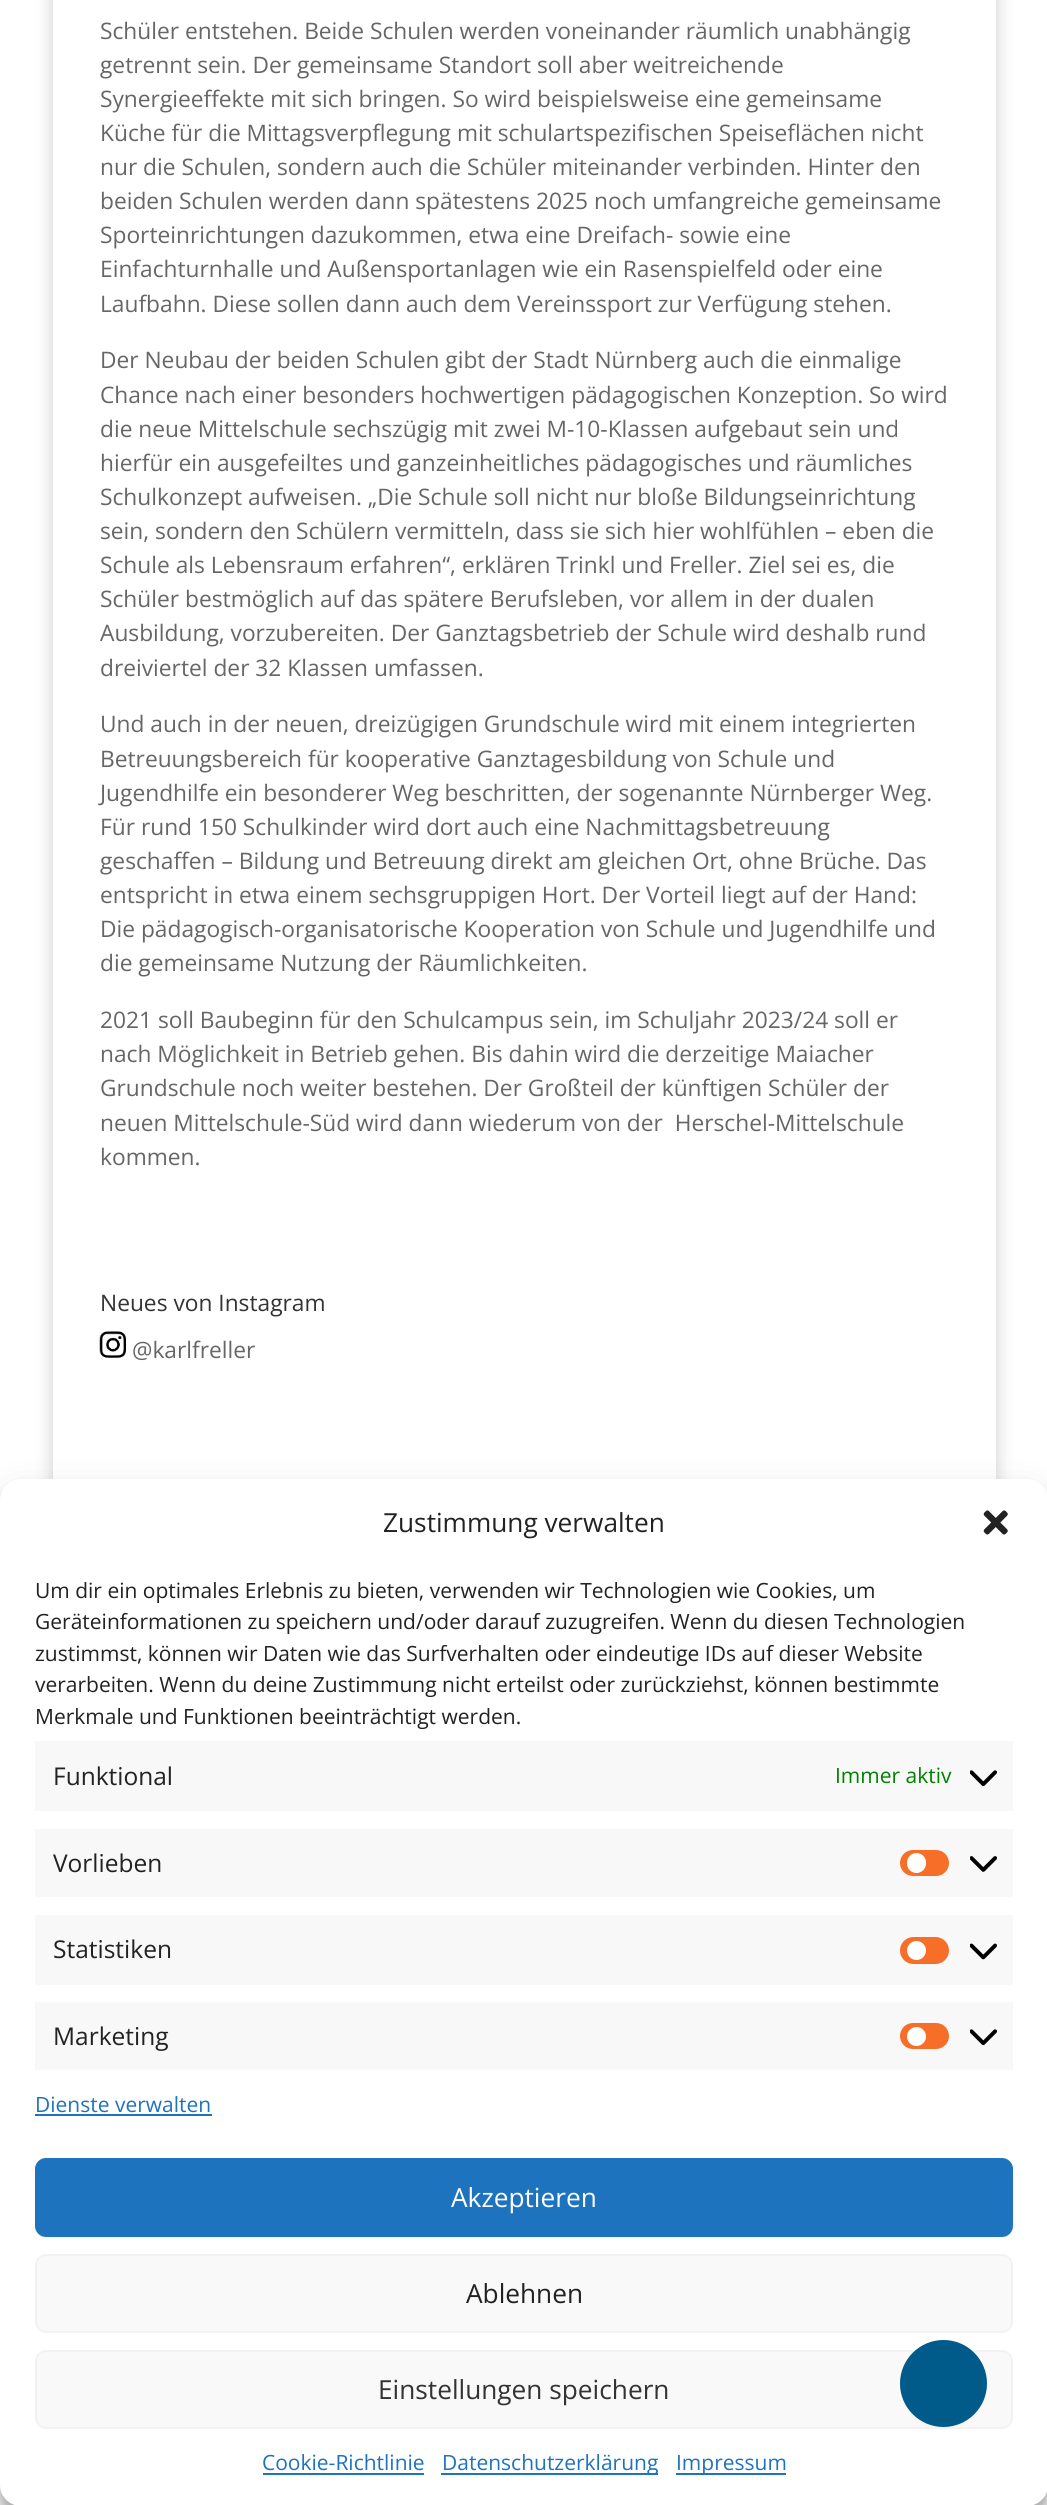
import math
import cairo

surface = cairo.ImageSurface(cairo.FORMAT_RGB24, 1047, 2505)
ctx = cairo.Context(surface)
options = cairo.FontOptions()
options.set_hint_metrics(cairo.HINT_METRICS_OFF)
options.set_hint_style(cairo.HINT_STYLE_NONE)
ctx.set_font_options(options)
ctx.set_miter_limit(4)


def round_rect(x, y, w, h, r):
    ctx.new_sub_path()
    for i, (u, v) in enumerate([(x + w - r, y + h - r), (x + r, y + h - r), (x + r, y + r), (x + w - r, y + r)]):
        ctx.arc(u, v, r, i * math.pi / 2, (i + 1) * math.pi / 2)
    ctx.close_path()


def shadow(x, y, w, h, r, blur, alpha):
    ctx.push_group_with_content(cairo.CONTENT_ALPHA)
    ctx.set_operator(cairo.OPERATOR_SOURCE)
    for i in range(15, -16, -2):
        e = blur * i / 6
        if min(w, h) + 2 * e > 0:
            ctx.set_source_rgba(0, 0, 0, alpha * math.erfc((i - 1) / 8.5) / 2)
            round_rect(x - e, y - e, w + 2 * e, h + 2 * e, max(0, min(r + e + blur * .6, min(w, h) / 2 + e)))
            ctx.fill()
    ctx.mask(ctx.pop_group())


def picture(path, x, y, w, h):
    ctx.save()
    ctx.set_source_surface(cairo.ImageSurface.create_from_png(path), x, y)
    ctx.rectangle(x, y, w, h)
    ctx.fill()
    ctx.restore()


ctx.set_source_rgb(1, 1, 1)
ctx.paint()
ctx.set_source_rgb(0, 0, 0)
shadow(53, -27, 943, 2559, 0, 9, 0.2)
ctx.set_source_rgb(1, 1, 1)
ctx.rectangle(53, 0, 943, 1479)
ctx.fill()
ctx.select_font_face("Open Sans")
ctx.set_font_size(22.75)
ctx.set_source_rgb(0.4, 0.4, 0.4)
ctx.move_to(100, 39)
ctx.show_text("Schüler entstehen. Beide Schulen werden voneinander räumlich unabhängig")
ctx.move_to(100, 73)
ctx.show_text("getrennt sein. Der gemeinsame Standort soll aber weitreichende")
ctx.move_to(100, 107)
ctx.show_text("Synergieeffekte mit sich bringen. So wird beispielsweise eine gemeinsame")
ctx.move_to(100, 141)
ctx.show_text("Küche für die Mittagsverpflegung mit schulartspezifischen Speiseflächen nicht")
ctx.move_to(100, 175)
ctx.show_text("nur die Schulen, sondern auch die Schüler miteinander verbinden. Hinter den")
ctx.move_to(100, 209)
ctx.show_text("beiden Schulen werden dann spätestens 2025 noch umfangreiche gemeinsame")
ctx.move_to(100, 243)
ctx.show_text("Sporteinrichtungen dazukommen, etwa eine Dreifach- sowie eine")
ctx.move_to(100, 277)
ctx.show_text("Einfachturnhalle und Außensportanlagen wie ein Rasenspielfeld oder eine")
ctx.move_to(100, 312)
ctx.show_text("Laufbahn. Diese sollen dann auch dem Vereinssport zur Verfügung stehen.")
ctx.move_to(100, 368)
ctx.show_text("Der Neubau der beiden Schulen gibt der Stadt Nürnberg auch die einmalige")
ctx.move_to(100, 403)
ctx.show_text("Chance nach einer besonders hochwertigen pädagogischen Konzeption. So wird")
ctx.move_to(100, 437)
ctx.show_text("die neue Mittelschule sechszügig mit zwei M-10-Klassen aufgebaut sein und")
ctx.move_to(100, 471)
ctx.show_text("hierfür ein ausgefeiltes und ganzeinheitliches pädagogisches und räumliches")
ctx.move_to(100, 505)
ctx.show_text("Schulkonzept aufweisen. „Die Schule soll nicht nur bloße Bildungseinrichtung")
ctx.move_to(100, 539)
ctx.show_text("sein, sondern den Schülern vermitteln, dass sie sich hier wohlfühlen – eben die")
ctx.move_to(100, 573)
ctx.show_text("Schule als Lebensraum erfahren“, erklären Trinkl und Freller. Ziel sei es, die")
ctx.move_to(100, 607)
ctx.show_text("Schüler bestmöglich auf das spätere Berufsleben, vor allem in der dualen")
ctx.move_to(100, 641)
ctx.show_text("Ausbildung, vorzubereiten. Der Ganztagsbetrieb der Schule wird deshalb rund")
ctx.move_to(100, 676)
ctx.show_text("dreiviertel der 32 Klassen umfassen.")
ctx.move_to(100, 732)
ctx.show_text("Und auch in der neuen, dreizügigen Grundschule wird mit einem integrierten")
ctx.move_to(100, 767)
ctx.show_text("Betreuungsbereich für kooperative Ganztagesbildung von Schule und")
ctx.move_to(100, 801)
ctx.show_text("Jugendhilfe ein besonderer Weg beschritten, der sogenannte Nürnberger Weg.")
ctx.move_to(100, 835)
ctx.show_text("Für rund 150 Schulkinder wird dort auch eine Nachmittagsbetreuung")
ctx.move_to(100, 869)
ctx.show_text("geschaffen – Bildung und Betreuung direkt am gleichen Ort, ohne Brüche. Das")
ctx.move_to(100, 903)
ctx.show_text("entspricht in etwa einem sechsgruppigen Hort. Der Vorteil liegt auf der Hand:")
ctx.move_to(100, 937)
ctx.show_text("Die pädagogisch-organisatorische Kooperation von Schule und Jugendhilfe und")
ctx.move_to(100, 971)
ctx.show_text("die gemeinsame Nutzung der Räumlichkeiten.")
ctx.move_to(100, 1028)
ctx.show_text("2021 soll Baubeginn für den Schulcampus sein, im Schuljahr 2023/24 soll er")
ctx.move_to(100, 1062)
ctx.show_text("nach Möglichkeit in Betrieb gehen. Bis dahin wird die derzeitige Maiacher")
ctx.move_to(100, 1096)
ctx.show_text("Grundschule noch weiter bestehen. Der Großteil der künftigen Schüler der")
ctx.move_to(100, 1131)
ctx.show_text("neuen Mittelschule-Süd wird dann wiederum von der  Herschel-Mittelschule")
ctx.move_to(100, 1165)
ctx.show_text("kommen.")
ctx.set_source_rgb(0.2, 0.2, 0.2)
ctx.move_to(100, 1311)
ctx.show_text("Neues von Instagram")
picture("img1.png", 99, 1331, 27, 27)
ctx.set_source_rgb(0.4, 0.4, 0.4)
ctx.move_to(132, 1358)
ctx.show_text("@karlfreller")
ctx.set_source_rgb(0, 0, 0)
shadow(0, 1489, 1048, 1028, 21, 5, 0.23)
shadow(0, 1496, 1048, 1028, 21, 17.5, 0.19)
ctx.set_source_rgb(1, 1, 1)
round_rect(0, 1479, 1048, 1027, 21)
ctx.fill()
ctx.set_font_size(26.25)
ctx.set_source_rgb(0.133, 0.133, 0.133)
ctx.move_to(383, 1532)
ctx.show_text("Zustimmung verwalten")
picture("img2.png", 983, 1510, 25, 25)
ctx.set_font_size(21)
ctx.move_to(35, 1598)
ctx.show_text("Um dir ein optimales Erlebnis zu bieten, verwenden wir Technologien wie Cookies, um")
ctx.move_to(35, 1629)
ctx.show_text("Geräteinformationen zu speichern und/oder darauf zuzugreifen. Wenn du diesen Technologien")
ctx.move_to(35, 1661)
ctx.show_text("zustimmst, können wir Daten wie das Surfverhalten oder eindeutige IDs auf dieser Website")
ctx.move_to(35, 1692)
ctx.show_text("verarbeiten. Wenn du deine Zustimmung nicht erteilst oder zurückziehst, können bestimmte")
ctx.move_to(35, 1724)
ctx.show_text("Merkmale und Funktionen beeinträchtigt werden.")
ctx.set_source_rgb(0.969, 0.969, 0.969)
ctx.rectangle(35, 1741, 978, 70)
ctx.fill()
ctx.set_font_size(24.5)
ctx.set_source_rgb(0.133, 0.133, 0.133)
ctx.move_to(53, 1785)
ctx.show_text("Funktional")
ctx.set_font_size(21)
ctx.set_source_rgb(0, 0.502, 0)
ctx.move_to(835, 1783)
ctx.show_text("Immer aktiv")
picture("img3.png", 970, 1770, 27, 17)
ctx.set_source_rgb(0.969, 0.969, 0.969)
ctx.rectangle(35, 1829, 978, 68)
ctx.fill()
ctx.set_font_size(24.5)
ctx.set_source_rgb(0.133, 0.133, 0.133)
ctx.move_to(53, 1872)
ctx.show_text("Vorlieben")
ctx.set_source_rgb(0.961, 0.431, 0.157)
round_rect(900, 1850, 49, 26, 13)
ctx.fill()
ctx.set_source_rgb(1, 1, 1)
round_rect(907, 1853, 19, 20, 9.5)
ctx.fill()
picture("img4.png", 970, 1856, 27, 16)
ctx.set_source_rgb(0.969, 0.969, 0.969)
ctx.rectangle(35, 1915, 978, 70)
ctx.fill()
ctx.set_source_rgb(0.133, 0.133, 0.133)
ctx.move_to(53, 1958)
ctx.show_text("Statistiken")
ctx.set_source_rgb(0.961, 0.431, 0.157)
round_rect(900, 1937, 49, 27, 13.5)
ctx.fill()
ctx.set_source_rgb(1, 1, 1)
ctx.arc(916.5, 1950.5, 9.5, 0, 2 * math.pi)
ctx.fill()
picture("img5.png", 970, 1943, 27, 17)
ctx.set_source_rgb(0.969, 0.969, 0.969)
ctx.rectangle(35, 2002, 978, 68)
ctx.fill()
ctx.set_source_rgb(0.133, 0.133, 0.133)
ctx.move_to(53, 2045)
ctx.show_text("Marketing")
ctx.set_source_rgb(0.961, 0.431, 0.157)
round_rect(900, 2023, 49, 26, 13)
ctx.fill()
ctx.set_source_rgb(1, 1, 1)
ctx.arc(916.5, 2036.5, 9.5, 0, 2 * math.pi)
ctx.fill()
picture("img3.png", 970, 2029, 27, 17)
ctx.set_font_size(21)
ctx.set_source_rgb(0.118, 0.451, 0.745)
ctx.move_to(35, 2112)
ctx.show_text("Dienste verwalten")
ctx.rectangle(35, 2114, 177, 2)
ctx.fill()
round_rect(36, 2159, 976, 77, 10)
ctx.fill_preserve()
ctx.stroke()
ctx.set_font_size(26.25)
ctx.set_source_rgb(1, 1, 1)
ctx.move_to(451, 2207)
ctx.show_text("Akzeptieren")
ctx.set_source_rgb(0.976, 0.976, 0.976)
round_rect(36, 2255, 976, 77, 10)
ctx.fill_preserve()
ctx.set_source_rgb(0.949, 0.949, 0.949)
ctx.stroke()
ctx.set_source_rgb(0.133, 0.133, 0.133)
ctx.move_to(466, 2303)
ctx.show_text("Ablehnen")
ctx.set_source_rgb(0.976, 0.976, 0.976)
round_rect(36, 2351, 976, 77, 10)
ctx.fill_preserve()
ctx.set_source_rgb(0.949, 0.949, 0.949)
ctx.stroke()
ctx.set_source_rgb(0.2, 0.2, 0.2)
ctx.move_to(378, 2399)
ctx.show_text("Einstellungen speichern")
ctx.set_font_size(21)
ctx.set_source_rgb(0.118, 0.451, 0.745)
ctx.move_to(262, 2470)
ctx.show_text("Cookie-Richtlinie")
ctx.rectangle(263, 2473, 161, 2)
ctx.fill()
ctx.rectangle(441, 2473, 217, 2)
ctx.fill()
ctx.move_to(442, 2470)
ctx.show_text("Datenschutzerklärung")
ctx.rectangle(676, 2473, 110, 2)
ctx.fill()
ctx.move_to(676, 2470)
ctx.show_text("Impressum")
ctx.set_source_rgb(0, 0.353, 0.541)
ctx.new_path()
ctx.arc(943.5, 2383.5, 43.5, 0, 2 * math.pi)
ctx.fill()
surface.write_to_png("page.png")
